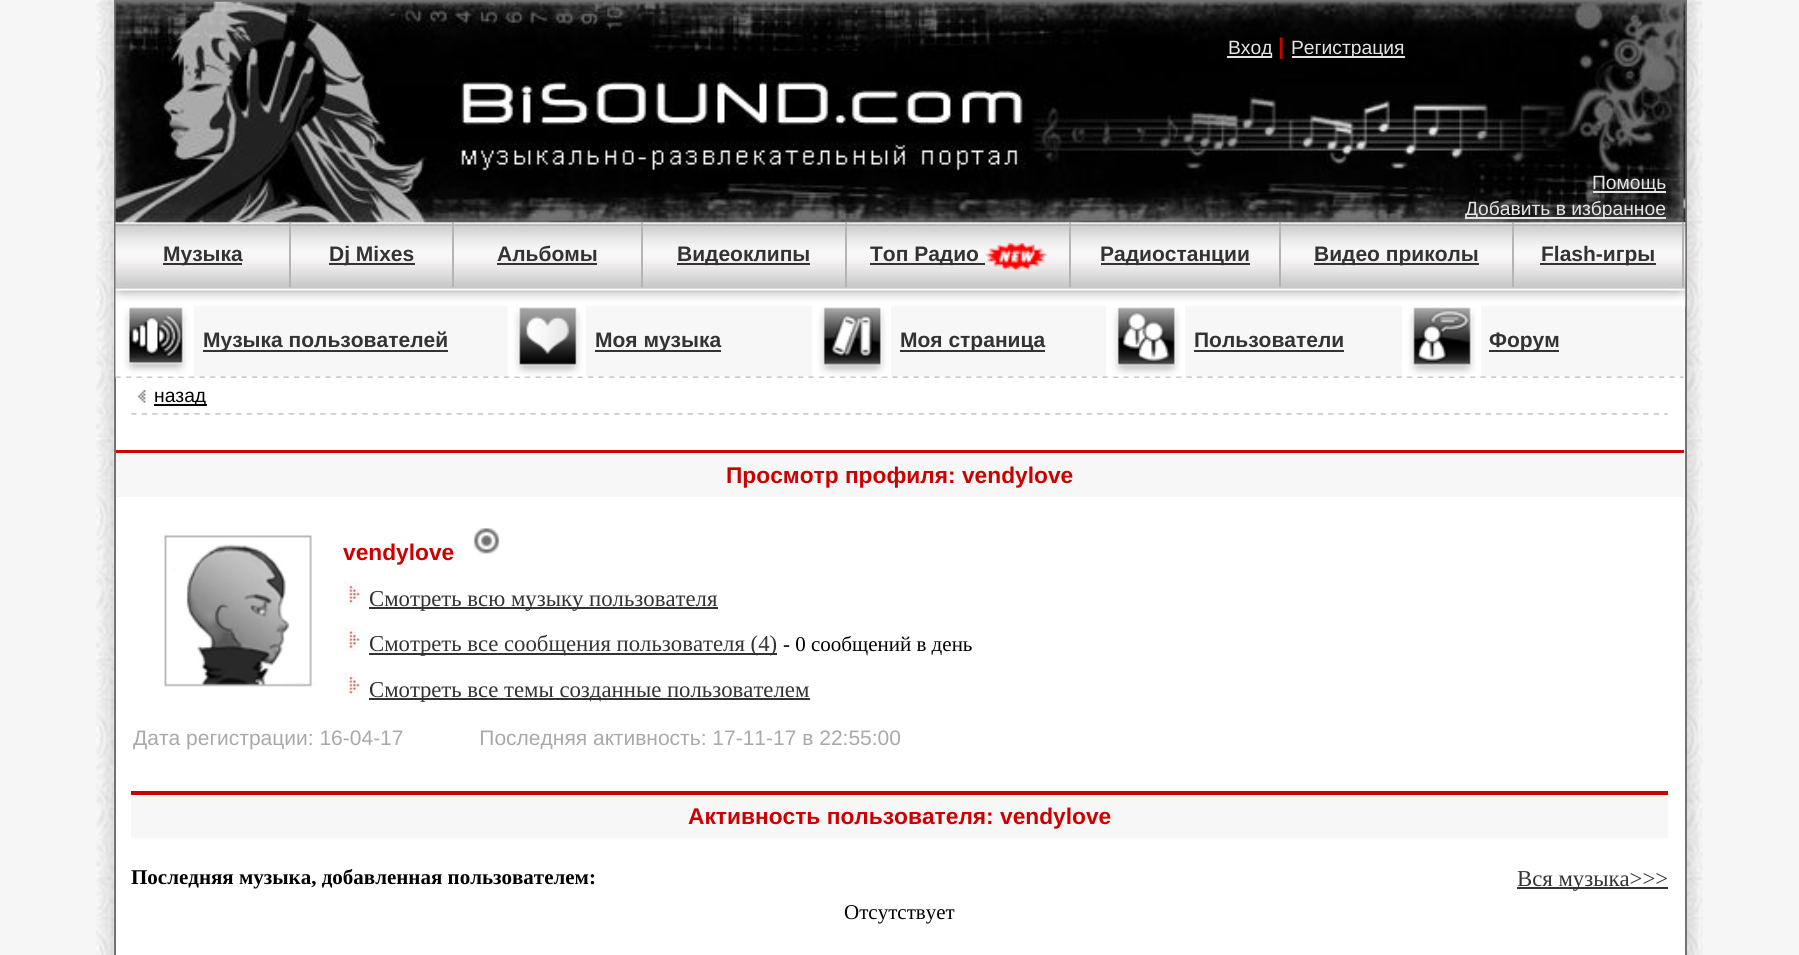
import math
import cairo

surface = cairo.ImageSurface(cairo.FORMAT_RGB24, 1799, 955)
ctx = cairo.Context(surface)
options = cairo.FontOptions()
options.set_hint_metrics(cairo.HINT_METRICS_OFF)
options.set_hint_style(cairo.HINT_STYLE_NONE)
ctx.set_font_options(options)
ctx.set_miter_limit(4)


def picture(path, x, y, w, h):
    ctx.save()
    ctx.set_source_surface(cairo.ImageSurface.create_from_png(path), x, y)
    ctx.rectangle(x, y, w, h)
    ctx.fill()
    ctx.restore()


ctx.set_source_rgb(0.961, 0.961, 0.961)
ctx.paint()
picture("img1.png", 96, 0, 18, 955)
ctx.set_source_rgb(1, 1, 1)
ctx.rectangle(116, 306, 1569, 649)
ctx.fill()
ctx.rectangle(115, 1, 1571, 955)
ctx.set_source_rgb(0.447, 0.447, 0.447)
ctx.stroke()
picture("img2.png", 115, 1, 1571, 306)
ctx.set_source_rgb(0.894, 0.894, 0.894)
ctx.rectangle(1227, 56, 45, 2)
ctx.fill()
ctx.select_font_face("Liberation Sans")
ctx.set_font_size(19.25)
ctx.move_to(1228, 54)
ctx.show_text("Вход")
ctx.select_font_face("Liberation Sans", cairo.FONT_SLANT_NORMAL, cairo.FONT_WEIGHT_BOLD)
ctx.set_font_size(22.75)
ctx.set_source_rgb(0.8, 0, 0)
ctx.move_to(1278, 54)
ctx.show_text("|")
ctx.set_source_rgb(0.894, 0.894, 0.894)
ctx.rectangle(1292, 56, 113, 2)
ctx.fill()
ctx.select_font_face("Liberation Sans")
ctx.set_font_size(19.25)
ctx.move_to(1291, 54)
ctx.show_text("Регистрация")
ctx.rectangle(1593, 191, 73, 2)
ctx.fill()
ctx.move_to(1592, 189)
ctx.show_text("Помощь")
ctx.rectangle(1465, 217, 201, 2)
ctx.fill()
ctx.move_to(1465, 215)
ctx.show_text("Добавить в избранное")
ctx.set_source_rgb(0.706, 0.706, 0.706)
ctx.rectangle(289, 222, 2, 65)
ctx.fill()
ctx.set_source_rgb(0.2, 0.2, 0.2)
ctx.rectangle(163, 263, 79, 2)
ctx.fill()
ctx.select_font_face("Liberation Sans", cairo.FONT_SLANT_NORMAL, cairo.FONT_WEIGHT_BOLD)
ctx.set_font_size(21)
ctx.move_to(163, 261)
ctx.show_text("Музыка")
ctx.set_source_rgb(0.706, 0.706, 0.706)
ctx.rectangle(452, 222, 2, 65)
ctx.fill()
ctx.set_source_rgb(0.2, 0.2, 0.2)
ctx.rectangle(329, 263, 86, 2)
ctx.fill()
ctx.move_to(329, 261)
ctx.show_text("Dj Mixes")
ctx.set_source_rgb(0.706, 0.706, 0.706)
ctx.rectangle(641, 222, 2, 65)
ctx.fill()
ctx.set_source_rgb(0.2, 0.2, 0.2)
ctx.move_to(497, 261)
ctx.show_text("Альбомы")
ctx.rectangle(497, 263, 100, 2)
ctx.fill()
ctx.set_source_rgb(0.706, 0.706, 0.706)
ctx.rectangle(845, 222, 2, 65)
ctx.fill()
ctx.set_source_rgb(0.2, 0.2, 0.2)
ctx.rectangle(677, 263, 133, 2)
ctx.fill()
ctx.move_to(677, 261)
ctx.show_text("Видеоклипы")
ctx.set_source_rgb(0.706, 0.706, 0.706)
ctx.rectangle(1069, 222, 2, 65)
ctx.fill()
ctx.set_source_rgb(0.2, 0.2, 0.2)
ctx.rectangle(870, 263, 115, 2)
ctx.fill()
ctx.move_to(870, 261)
ctx.show_text("Топ Радио")
picture("img3.png", 985, 243, 62, 27)
ctx.set_source_rgb(0.706, 0.706, 0.706)
ctx.rectangle(1279, 222, 2, 65)
ctx.fill()
ctx.set_source_rgb(0.2, 0.2, 0.2)
ctx.rectangle(1101, 263, 149, 2)
ctx.fill()
ctx.move_to(1100, 261)
ctx.show_text("Радиостанции")
ctx.set_source_rgb(0.706, 0.706, 0.706)
ctx.rectangle(1512, 222, 2, 65)
ctx.fill()
ctx.set_source_rgb(0.2, 0.2, 0.2)
ctx.rectangle(1314, 263, 165, 2)
ctx.fill()
ctx.move_to(1314, 261)
ctx.show_text("Видео приколы")
ctx.set_source_rgb(0.706, 0.706, 0.706)
ctx.rectangle(1682, 222, 2, 65)
ctx.fill()
ctx.set_source_rgb(0.2, 0.2, 0.2)
ctx.rectangle(1540, 263, 116, 2)
ctx.fill()
ctx.move_to(1541, 261)
ctx.show_text("Flash-игры")
picture("img9.png", 115, 376, 1569, 2)
picture("img4.png", 115, 306, 79, 71)
ctx.set_source_rgb(0.965, 0.965, 0.965)
ctx.rectangle(194, 306, 314, 70)
ctx.fill()
ctx.set_source_rgb(0.2, 0.2, 0.2)
ctx.rectangle(203, 350, 245, 2)
ctx.fill()
ctx.move_to(203, 347)
ctx.show_text("Музыка пользователей")
picture("img5.png", 507, 307, 76, 70)
ctx.set_source_rgb(0.965, 0.965, 0.965)
ctx.rectangle(586, 306, 226, 70)
ctx.fill()
ctx.set_source_rgb(0.2, 0.2, 0.2)
ctx.rectangle(595, 350, 126, 2)
ctx.fill()
ctx.move_to(595, 347)
ctx.show_text("Моя музыка")
picture("img6.png", 812, 307, 75, 70)
ctx.set_source_rgb(0.965, 0.965, 0.965)
ctx.rectangle(891, 306, 215, 70)
ctx.fill()
ctx.set_source_rgb(0.2, 0.2, 0.2)
ctx.rectangle(900, 350, 145, 2)
ctx.fill()
ctx.move_to(900, 347)
ctx.show_text("Моя страница")
picture("img7.png", 1106, 307, 75, 70)
ctx.set_source_rgb(0.965, 0.965, 0.965)
ctx.rectangle(1185, 306, 217, 70)
ctx.fill()
ctx.set_source_rgb(0.2, 0.2, 0.2)
ctx.move_to(1194, 347)
ctx.show_text("Пользователи")
ctx.rectangle(1194, 350, 150, 2)
ctx.fill()
picture("img8.png", 1407, 307, 69, 70)
ctx.set_source_rgb(0.965, 0.965, 0.965)
ctx.rectangle(1481, 306, 203, 70)
ctx.fill()
ctx.set_source_rgb(0.2, 0.2, 0.2)
ctx.rectangle(1489, 350, 70, 2)
ctx.fill()
ctx.move_to(1489, 347)
ctx.show_text("Форум")
picture("img10.png", 137, 390, 9, 13)
ctx.set_source_rgb(0, 0, 0)
ctx.rectangle(154, 404, 53, 2)
ctx.fill()
ctx.select_font_face("Liberation Sans")
ctx.set_font_size(19.25)
ctx.move_to(154, 402)
ctx.show_text("назад")
picture("img11.png", 131, 413, 1537, 2)
ctx.set_source_rgb(0.8, 0, 0)
ctx.rectangle(116, 450, 1568, 3)
ctx.fill()
ctx.set_source_rgb(0.965, 0.965, 0.965)
ctx.rectangle(116, 453, 1568, 44)
ctx.fill()
ctx.select_font_face("Liberation Sans", cairo.FONT_SLANT_NORMAL, cairo.FONT_WEIGHT_BOLD)
ctx.set_font_size(22.75)
ctx.set_source_rgb(0.8, 0, 0)
ctx.move_to(726, 483)
ctx.show_text("Просмотр профиля: vendylove")
picture("img12.png", 164, 535, 151, 152)
ctx.move_to(343, 560)
ctx.show_text("vendylove")
picture("img13.png", 473, 528, 27, 26)
picture("img14.png", 344, 581, 16, 25)
ctx.set_source_rgb(0.2, 0.2, 0.2)
ctx.rectangle(369, 607, 349, 2)
ctx.fill()
ctx.select_font_face("Liberation Serif")
ctx.move_to(369, 606)
ctx.show_text("Смотреть всю музыку пользователя")
picture("img15.png", 344, 626, 16, 25)
ctx.rectangle(369, 653, 408, 2)
ctx.fill()
ctx.move_to(369, 651)
ctx.show_text("Смотреть все сообщения пользователя (4)")
ctx.set_font_size(21)
ctx.set_source_rgb(0, 0, 0)
ctx.move_to(783, 651)
ctx.show_text("- 0 сообщений в день")
picture("img14.png", 344, 672, 16, 25)
ctx.set_source_rgb(0.2, 0.2, 0.2)
ctx.rectangle(369, 698, 441, 2)
ctx.fill()
ctx.set_font_size(22.75)
ctx.move_to(369, 697)
ctx.show_text("Смотреть все темы созданные пользователем")
ctx.select_font_face("Liberation Sans")
ctx.set_font_size(21)
ctx.set_source_rgb(0.663, 0.663, 0.663)
ctx.move_to(133, 745)
ctx.show_text("Дата регистрации: 16-04-17             Последняя активность: 17-11-17 в 22:55:00")
ctx.set_source_rgb(0.8, 0, 0)
ctx.rectangle(131, 791, 1537, 4)
ctx.fill()
ctx.set_source_rgb(0.965, 0.965, 0.965)
ctx.rectangle(131, 795, 1537, 43)
ctx.fill()
ctx.select_font_face("Liberation Sans", cairo.FONT_SLANT_NORMAL, cairo.FONT_WEIGHT_BOLD)
ctx.set_font_size(22.75)
ctx.set_source_rgb(0.8, 0, 0)
ctx.move_to(688, 824)
ctx.show_text("Активность пользователя: vendylove")
ctx.select_font_face("Liberation Serif", cairo.FONT_SLANT_NORMAL, cairo.FONT_WEIGHT_BOLD)
ctx.set_font_size(21)
ctx.set_source_rgb(0, 0, 0)
ctx.move_to(131, 884)
ctx.show_text("Последняя музыка, добавленная пользователем:")
ctx.set_source_rgb(0.2, 0.2, 0.2)
ctx.rectangle(1517, 887, 151, 2)
ctx.fill()
ctx.select_font_face("Liberation Serif")
ctx.set_font_size(22.75)
ctx.move_to(1517, 886)
ctx.show_text("Вся музыка>>>")
ctx.set_font_size(21)
ctx.set_source_rgb(0, 0, 0)
ctx.move_to(844, 919)
ctx.show_text("Отсутствует")
picture("img16.png", 1687, 0, 16, 955)
surface.write_to_png("page.png")
